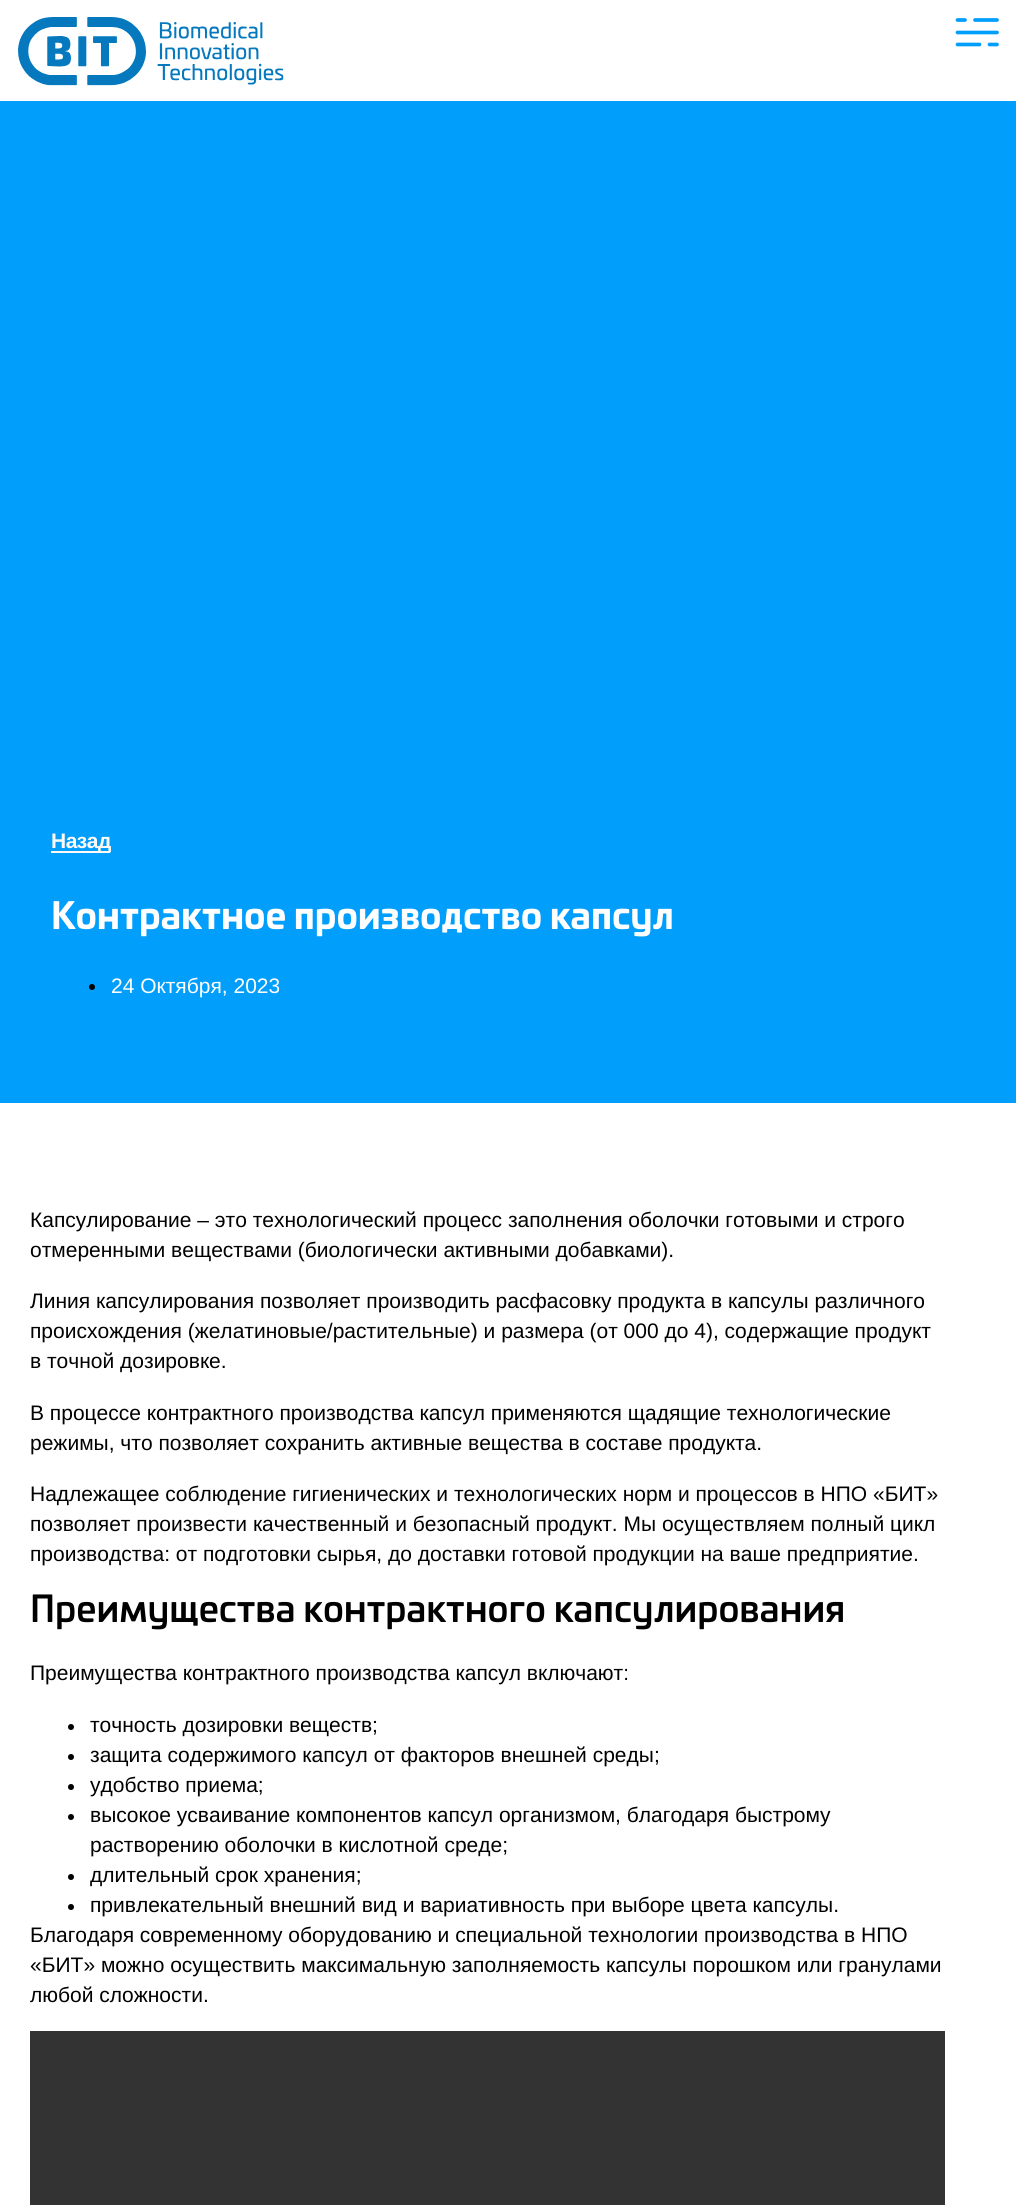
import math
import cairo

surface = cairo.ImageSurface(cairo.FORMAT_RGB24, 1016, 2205)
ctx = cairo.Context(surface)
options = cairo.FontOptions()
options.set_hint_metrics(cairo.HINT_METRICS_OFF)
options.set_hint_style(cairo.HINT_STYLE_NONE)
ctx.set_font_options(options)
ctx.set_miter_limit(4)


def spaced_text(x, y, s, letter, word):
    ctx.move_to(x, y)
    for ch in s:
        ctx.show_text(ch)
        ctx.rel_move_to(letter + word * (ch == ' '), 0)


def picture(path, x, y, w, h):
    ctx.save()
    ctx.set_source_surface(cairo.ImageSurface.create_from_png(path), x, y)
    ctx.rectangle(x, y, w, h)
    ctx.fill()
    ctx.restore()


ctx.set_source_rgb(1, 1, 1)
ctx.paint()
picture("img1.png", 18, 17, 266, 69)
ctx.new_path()
ctx.move_to(957.5, 20)
ctx.line_to(965, 20)
ctx.move_to(997, 20)
ctx.line_to(975, 20)
ctx.move_to(997, 44.5)
ctx.line_to(989.5, 44.5)
ctx.move_to(957.5, 44.5)
ctx.line_to(979.5, 44.5)
ctx.move_to(957.5, 32.5)
ctx.line_to(997, 32.5)
ctx.set_source_rgb(0.004, 0.62, 0.988)
ctx.set_line_width(3.7)
ctx.set_line_cap(cairo.LINE_CAP_ROUND)
ctx.stroke()
ctx.rectangle(0, 101, 1016, 1002)
ctx.fill()
ctx.set_source_rgb(1, 0.98, 0.961)
ctx.rectangle(51, 851, 59, 2)
ctx.fill()
ctx.select_font_face("Liberation Sans", cairo.FONT_SLANT_NORMAL, cairo.FONT_WEIGHT_BOLD)
ctx.set_font_size(21)
spaced_text(51, 848, "Назад", -0.5, 0)
ctx.select_font_face("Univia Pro", cairo.FONT_SLANT_NORMAL, cairo.FONT_WEIGHT_BOLD)
ctx.set_font_size(36)
ctx.set_source_rgb(1, 1, 1)
ctx.move_to(51, 929)
ctx.show_text("Контрактное производство капсул")
ctx.set_source_rgb(0, 0, 0)
ctx.new_path()
ctx.arc(92, 987, 3, 0, 2 * math.pi)
ctx.fill()
ctx.select_font_face("Liberation Sans")
ctx.set_font_size(21)
ctx.set_source_rgb(1, 1, 1)
ctx.move_to(111, 993)
ctx.show_text("24 Октября, 2023")
ctx.set_source_rgb(0, 0, 0)
ctx.move_to(30, 1227)
ctx.show_text("Капсулирование – это технологический процесс заполнения оболочки готовыми и строго")
ctx.move_to(30, 1257)
ctx.show_text("отмеренными веществами (биологически активными добавками).")
ctx.move_to(30, 1308)
ctx.show_text("Линия капсулирования позволяет производить расфасовку продукта в капсулы различного")
ctx.move_to(30, 1338)
ctx.show_text("происхождения (желатиновые/растительные) и размера (от 000 до 4), содержащие продукт")
ctx.move_to(30, 1368)
ctx.show_text("в точной дозировке.")
ctx.move_to(30, 1420)
ctx.show_text("В процессе контрактного производства капсул применяются щадящие технологические")
ctx.move_to(30, 1450)
ctx.show_text("режимы, что позволяет сохранить активные вещества в составе продукта.")
ctx.move_to(30, 1501)
ctx.show_text("Надлежащее соблюдение гигиенических и технологических норм и процессов в НПО «БИТ»")
ctx.move_to(30, 1531)
ctx.show_text("позволяет произвести качественный и безопасный продукт. Мы осуществляем полный цикл")
ctx.move_to(30, 1561)
ctx.show_text("производства: от подготовки сырья, до доставки готовой продукции на ваше предприятие.")
ctx.select_font_face("Univia Pro Medium")
ctx.set_font_size(36)
ctx.move_to(30, 1622)
ctx.show_text("Преимущества контрактного капсулирования")
ctx.select_font_face("Liberation Sans")
ctx.set_font_size(21)
ctx.move_to(30, 1680)
ctx.show_text("Преимущества контрактного производства капсул включают:")
ctx.new_path()
ctx.arc(71, 1727, 3, 0, 2 * math.pi)
ctx.fill()
ctx.move_to(90, 1732)
ctx.show_text("точность дозировки веществ;")
ctx.new_path()
ctx.arc(71, 1757, 3, 0, 2 * math.pi)
ctx.fill()
ctx.move_to(90, 1762)
ctx.show_text("защита содержимого капсул от факторов внешней среды;")
ctx.new_path()
ctx.arc(71, 1787, 3, 0, 2 * math.pi)
ctx.fill()
ctx.move_to(90, 1792)
ctx.show_text("удобство приема;")
ctx.new_path()
ctx.arc(71, 1817, 3, 0, 2 * math.pi)
ctx.fill()
ctx.move_to(90, 1822)
ctx.show_text("высокое усваивание компонентов капсул организмом, благодаря быстрому")
ctx.move_to(90, 1852)
ctx.show_text("растворению оболочки в кислотной среде;")
ctx.new_path()
ctx.arc(71, 1877, 3, 0, 2 * math.pi)
ctx.fill()
ctx.move_to(90, 1882)
ctx.show_text("длительный срок хранения;")
ctx.new_path()
ctx.arc(71, 1907, 3, 0, 2 * math.pi)
ctx.fill()
ctx.move_to(90, 1912)
ctx.show_text("привлекательный внешний вид и вариативность при выборе цвета капсулы.")
ctx.move_to(30, 1942)
ctx.show_text("Благодаря современному оборудованию и специальной технологии производства в НПО")
ctx.move_to(30, 1972)
ctx.show_text("«БИТ» можно осуществить максимальную заполняемость капсулы порошком или гранулами")
ctx.move_to(30, 2002)
ctx.show_text("любой сложности.")
ctx.set_source_rgb(0.2, 0.2, 0.2)
ctx.rectangle(30, 2031, 915, 174)
ctx.fill()
surface.write_to_png("page.png")
